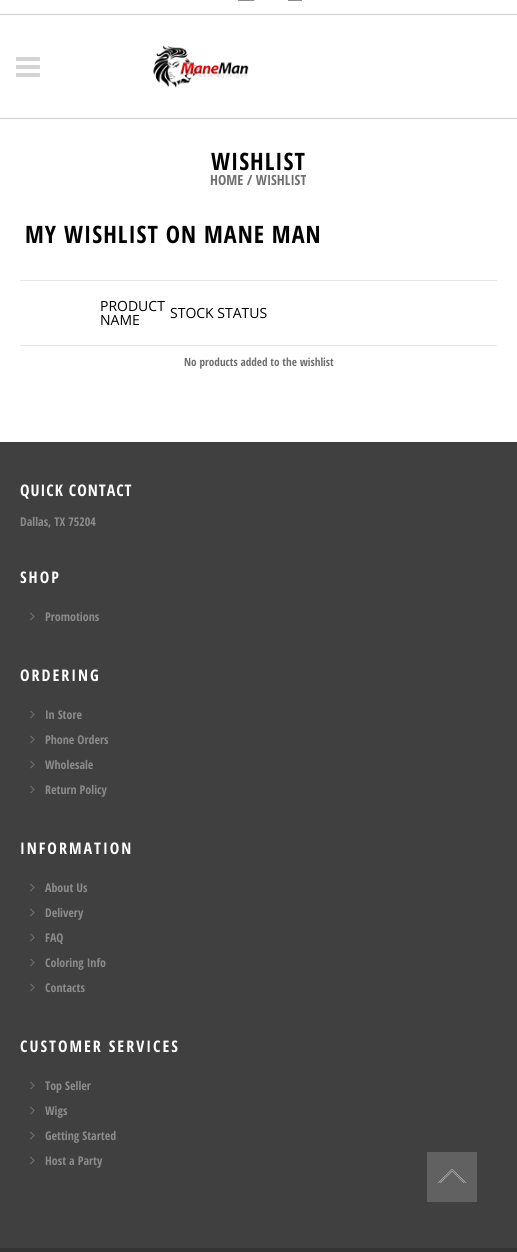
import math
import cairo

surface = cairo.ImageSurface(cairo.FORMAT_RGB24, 517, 1252)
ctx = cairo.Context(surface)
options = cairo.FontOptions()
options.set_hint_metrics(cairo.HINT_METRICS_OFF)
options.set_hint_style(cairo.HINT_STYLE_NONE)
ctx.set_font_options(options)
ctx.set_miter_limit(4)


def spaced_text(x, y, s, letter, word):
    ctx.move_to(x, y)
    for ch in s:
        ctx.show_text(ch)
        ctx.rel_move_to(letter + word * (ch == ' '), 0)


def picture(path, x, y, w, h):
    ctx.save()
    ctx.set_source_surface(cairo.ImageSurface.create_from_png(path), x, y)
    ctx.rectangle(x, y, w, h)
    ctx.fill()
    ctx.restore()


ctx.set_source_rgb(1, 1, 1)
ctx.paint()
ctx.set_source_rgb(0.816, 0.816, 0.816)
ctx.rectangle(0, 14, 517, 1)
ctx.fill()
picture("img1.png", 238, 0, 17, 1)
ctx.set_source_rgb(0.557, 0.557, 0.557)
ctx.rectangle(288, 0, 14, 1)
ctx.fill()
ctx.set_source_rgb(0.816, 0.816, 0.816)
ctx.rectangle(0, 118, 517, 1)
ctx.fill()
picture("img2.png", 16, 57, 24, 20)
picture("img3.png", 153, 45, 96, 43)
ctx.select_font_face("Open Sans Condensed", cairo.FONT_SLANT_NORMAL, cairo.FONT_WEIGHT_BOLD)
ctx.set_font_size(24)
ctx.set_source_rgb(0, 0, 0)
spaced_text(211, 170, "WISHLIST", 1, 0)
ctx.set_font_size(14)
ctx.set_source_rgb(0.435, 0.435, 0.435)
ctx.move_to(210, 185)
ctx.show_text("HOME / WISHLIST")
ctx.set_font_size(24)
ctx.set_source_rgb(0, 0, 0)
spaced_text(25, 243, "MY WISHLIST ON MANE MAN", 1, 0)
ctx.set_source_rgb(0.906, 0.906, 0.906)
ctx.rectangle(20, 280, 477, 1)
ctx.fill()
ctx.select_font_face("Open Sans")
ctx.set_font_size(14)
ctx.set_source_rgb(0, 0, 0)
ctx.move_to(100, 311)
ctx.show_text("PRODUCT")
ctx.move_to(100, 325)
ctx.show_text("NAME")
ctx.move_to(170, 318)
ctx.show_text("STOCK STATUS")
ctx.set_source_rgb(0.902, 0.902, 0.902)
ctx.rectangle(20, 345, 477, 1)
ctx.fill()
ctx.select_font_face("Open Sans Condensed", cairo.FONT_SLANT_NORMAL, cairo.FONT_WEIGHT_BOLD)
ctx.set_font_size(11.25)
ctx.set_source_rgb(0.435, 0.435, 0.435)
ctx.move_to(184, 366)
ctx.show_text("No products added to the wishlist")
ctx.set_source_rgb(0.251, 0.251, 0.251)
ctx.rectangle(0, 442, 517, 806)
ctx.fill()
ctx.set_font_size(16)
ctx.set_source_rgb(1, 1, 1)
spaced_text(20, 496, "QUICK CONTACT", 1, 0)
ctx.set_font_size(12)
ctx.set_source_rgb(0.545, 0.545, 0.545)
ctx.move_to(20, 526)
ctx.show_text("Dallas, TX 75204")
ctx.set_font_size(16)
ctx.set_source_rgb(1, 1, 1)
spaced_text(20, 583, "SHOP", 2, 0)
picture("img4.png", 30, 612, 5, 9)
ctx.set_font_size(12)
ctx.set_source_rgb(0.545, 0.545, 0.545)
ctx.move_to(45, 621)
ctx.show_text("Promotions")
ctx.set_font_size(16)
ctx.set_source_rgb(1, 1, 1)
spaced_text(20, 681, "ORDERING", 2, 0)
picture("img4.png", 30, 710, 5, 9)
ctx.set_font_size(12)
ctx.set_source_rgb(0.545, 0.545, 0.545)
ctx.move_to(45, 719)
ctx.show_text("In Store")
picture("img4.png", 30, 735, 5, 9)
ctx.move_to(45, 744)
ctx.show_text("Phone Orders")
picture("img4.png", 30, 760, 5, 9)
ctx.move_to(45, 769)
ctx.show_text("Wholesale")
picture("img4.png", 30, 785, 5, 9)
ctx.move_to(45, 794)
ctx.show_text("Return Policy")
ctx.set_font_size(16)
ctx.set_source_rgb(1, 1, 1)
spaced_text(20, 854, "INFORMATION", 2, 0)
picture("img4.png", 30, 883, 5, 9)
ctx.set_font_size(12)
ctx.set_source_rgb(0.545, 0.545, 0.545)
ctx.move_to(45, 892)
ctx.show_text("About Us")
picture("img4.png", 30, 908, 5, 9)
ctx.move_to(45, 917)
ctx.show_text("Delivery")
picture("img4.png", 30, 933, 5, 9)
ctx.move_to(45, 942)
ctx.show_text("FAQ")
picture("img4.png", 30, 958, 5, 9)
ctx.move_to(45, 967)
ctx.show_text("Coloring Info")
picture("img4.png", 30, 983, 5, 9)
ctx.move_to(45, 992)
ctx.show_text("Contacts")
ctx.set_font_size(16)
ctx.set_source_rgb(1, 1, 1)
spaced_text(20, 1052, "CUSTOMER SERVICES", 2, 0)
picture("img4.png", 30, 1081, 5, 9)
ctx.set_font_size(12)
ctx.set_source_rgb(0.545, 0.545, 0.545)
ctx.move_to(45, 1090)
ctx.show_text("Top Seller")
picture("img4.png", 30, 1106, 5, 9)
ctx.move_to(45, 1115)
ctx.show_text("Wigs")
picture("img4.png", 30, 1131, 5, 9)
ctx.move_to(45, 1140)
ctx.show_text("Getting Started")
picture("img4.png", 30, 1156, 5, 9)
ctx.move_to(45, 1165)
ctx.show_text("Host a Party")
ctx.set_source_rgb(0.204, 0.204, 0.204)
ctx.rectangle(0, 1249, 517, 3)
ctx.fill()
ctx.set_source_rgb(0.2, 0.208, 0.212)
ctx.rectangle(0, 1248, 517, 1)
ctx.fill()
ctx.set_source_rgb(0.38, 0.38, 0.38)
ctx.rectangle(427, 1152, 50, 50)
ctx.fill()
picture("img5.png", 438, 1169, 29, 14)
surface.write_to_png("page.png")
